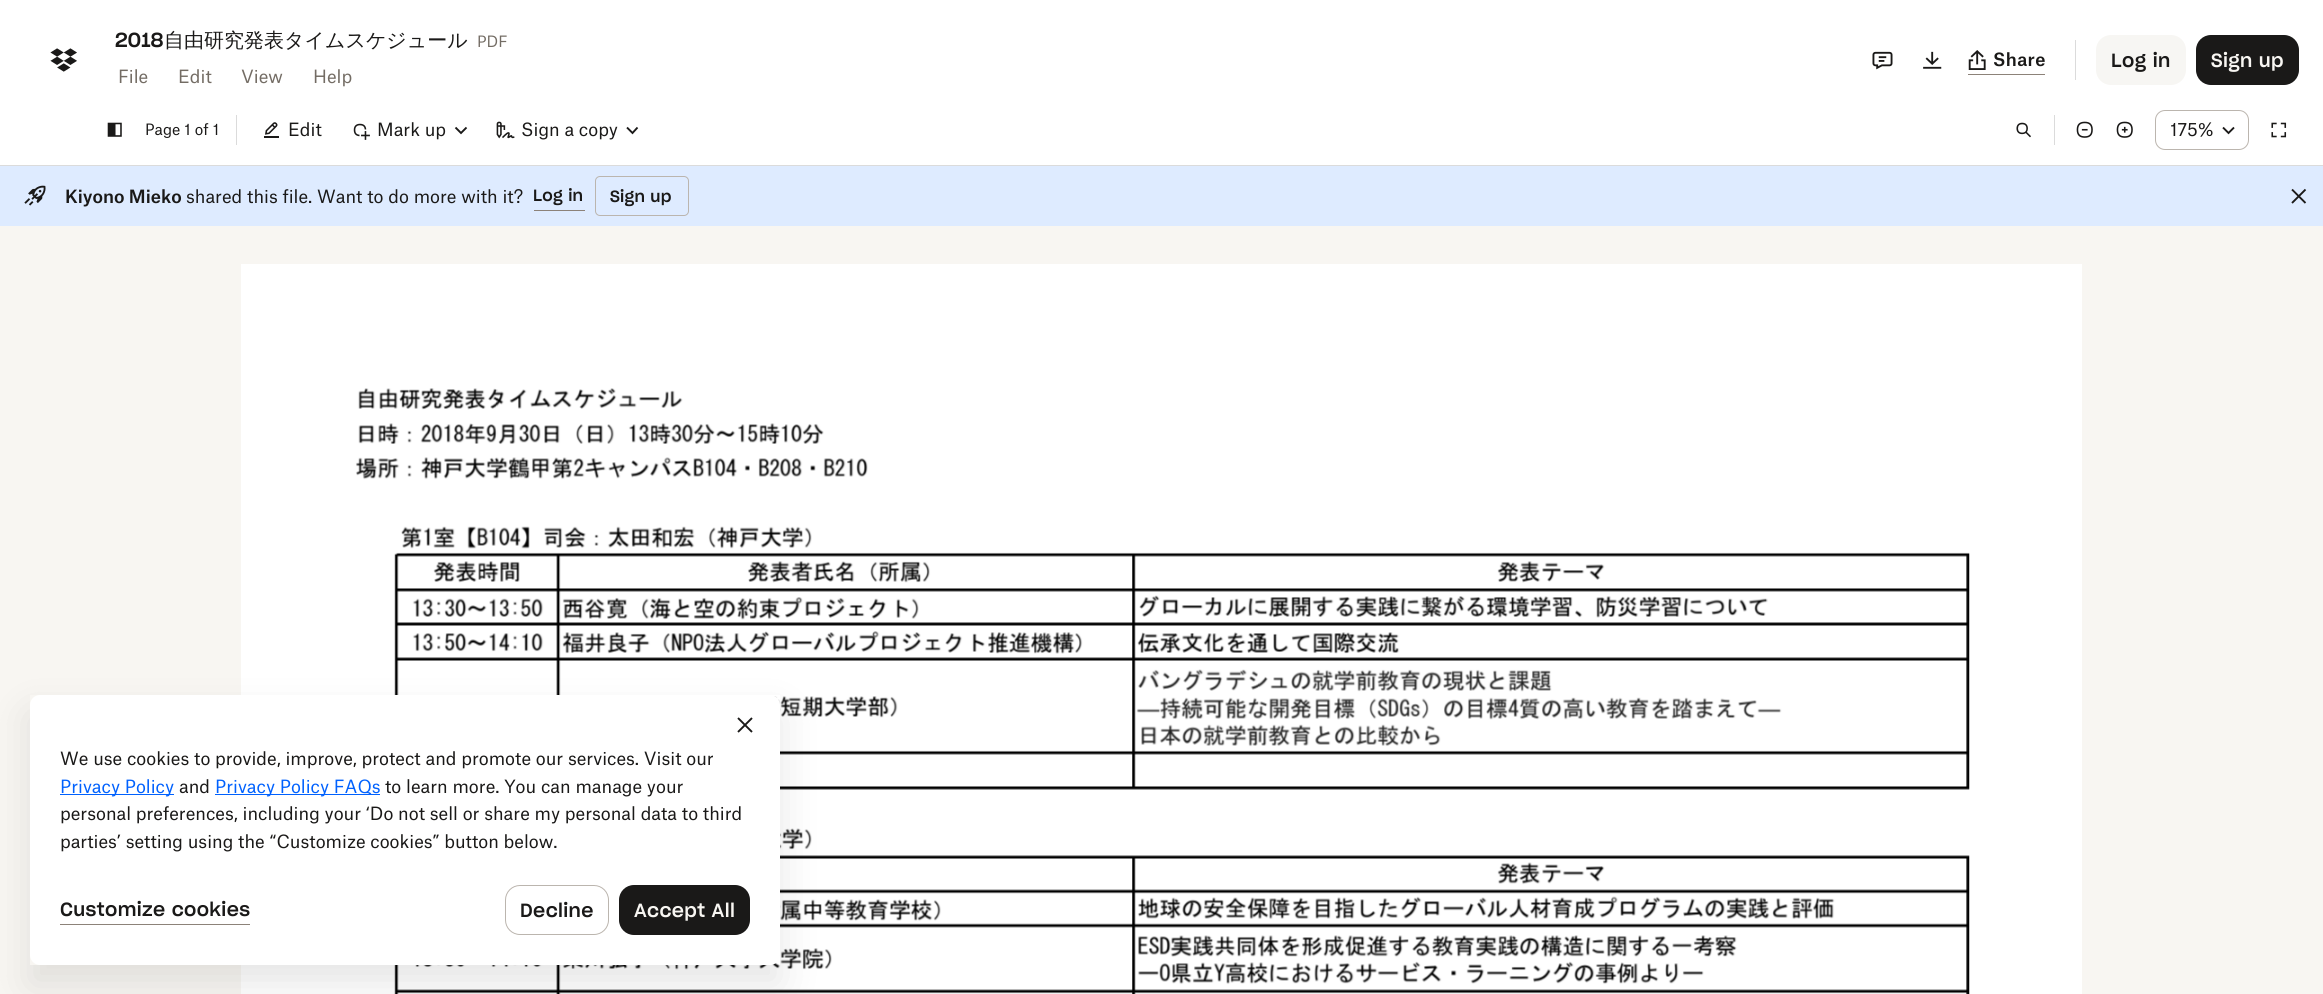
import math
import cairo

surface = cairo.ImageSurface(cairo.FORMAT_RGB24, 2323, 994)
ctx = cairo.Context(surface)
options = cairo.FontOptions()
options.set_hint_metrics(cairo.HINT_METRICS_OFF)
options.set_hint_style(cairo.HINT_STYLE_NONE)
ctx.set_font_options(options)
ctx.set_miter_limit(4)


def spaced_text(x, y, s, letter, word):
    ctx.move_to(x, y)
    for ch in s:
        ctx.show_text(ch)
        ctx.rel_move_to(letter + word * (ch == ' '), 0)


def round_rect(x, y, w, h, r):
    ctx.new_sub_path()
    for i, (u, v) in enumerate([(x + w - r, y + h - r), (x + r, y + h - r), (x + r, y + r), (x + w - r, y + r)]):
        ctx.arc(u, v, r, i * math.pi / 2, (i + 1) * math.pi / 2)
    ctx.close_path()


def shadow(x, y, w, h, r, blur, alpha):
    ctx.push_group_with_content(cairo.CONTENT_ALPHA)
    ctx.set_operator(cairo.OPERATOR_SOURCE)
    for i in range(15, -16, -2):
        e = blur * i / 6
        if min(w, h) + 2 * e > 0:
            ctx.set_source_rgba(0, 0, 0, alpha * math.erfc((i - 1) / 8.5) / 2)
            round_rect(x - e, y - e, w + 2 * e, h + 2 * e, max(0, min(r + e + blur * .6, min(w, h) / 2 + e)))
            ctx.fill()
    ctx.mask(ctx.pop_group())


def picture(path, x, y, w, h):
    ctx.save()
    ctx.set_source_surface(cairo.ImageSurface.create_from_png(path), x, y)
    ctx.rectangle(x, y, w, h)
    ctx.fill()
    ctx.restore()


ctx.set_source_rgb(1, 1, 1)
ctx.paint()
ctx.set_source_rgb(0.859, 0.859, 0.859)
ctx.rectangle(0, 165, 2323, 1)
ctx.fill()
picture("img1.png", 50, 48, 27, 24)
ctx.select_font_face("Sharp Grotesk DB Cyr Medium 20 Medium")
ctx.set_font_size(20)
ctx.set_source_rgb(0.102, 0.098, 0.094)
ctx.move_to(115, 47)
ctx.show_text("2018")
ctx.select_font_face("WenQuanYi Zen Hei Medium")
ctx.move_to(164, 47)
ctx.show_text("自由研究発表タイムスケジュール")
ctx.select_font_face("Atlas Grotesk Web")
ctx.set_font_size(15)
ctx.set_source_rgb(0.451, 0.424, 0.392)
ctx.move_to(477, 47)
ctx.show_text("PDF")
ctx.set_font_size(17.5)
ctx.move_to(118, 83)
ctx.show_text("File")
ctx.move_to(178, 83)
ctx.show_text("Edit")
ctx.move_to(241, 83)
ctx.show_text("View")
ctx.move_to(313, 83)
ctx.show_text("Help")
picture("img2.png", 1872, 51, 21, 19)
picture("img3.png", 1923, 51, 19, 18)
ctx.set_source_rgb(0.549, 0.51, 0.475)
ctx.rectangle(1968, 74, 77, 1)
ctx.fill()
picture("img4.png", 1968, 50, 18, 20)
ctx.select_font_face("Atlas Grotesk Web Medium")
ctx.set_source_rgb(0.102, 0.098, 0.094)
spaced_text(1993, 66, "Share", 0.4, 0)
ctx.set_source_rgb(0.859, 0.859, 0.859)
ctx.rectangle(2075, 40, 1, 40)
ctx.fill()
ctx.set_source_rgb(0.965, 0.961, 0.953)
round_rect(2096, 35, 90, 50, 15)
ctx.fill()
ctx.select_font_face("Sharp Grotesk DB Cyr Medium 20 Medium")
ctx.set_font_size(18.75)
ctx.set_source_rgb(0.102, 0.098, 0.094)
spaced_text(2111, 67, "Log in", 0.4, 0)
round_rect(2196, 35, 103, 50, 15)
ctx.fill()
ctx.set_source_rgb(0.969, 0.961, 0.949)
spaced_text(2211, 67, "Sign up", 0.4, 0)
picture("img5.png", 107, 122, 15, 15)
ctx.select_font_face("Atlas Grotesk Web")
ctx.set_font_size(15)
ctx.set_source_rgb(0.102, 0.098, 0.094)
ctx.move_to(145, 135)
ctx.show_text("Page 1 of 1")
ctx.set_source_rgb(0.859, 0.859, 0.859)
ctx.rectangle(236, 115, 1, 30)
ctx.fill()
picture("img6.png", 264, 122, 15, 16)
ctx.set_font_size(17.5)
ctx.set_source_rgb(0.102, 0.098, 0.094)
ctx.move_to(288, 136)
ctx.show_text("Edit")
picture("img7.png", 353, 123, 17, 17)
ctx.move_to(377, 136)
ctx.show_text("Mark up")
ctx.new_path()
ctx.move_to(455.5, 127.5)
ctx.line_to(461, 133)
ctx.line_to(466.5, 127.5)
ctx.set_line_width(1.9)
ctx.stroke()
picture("img8.png", 496, 121, 19, 18)
ctx.move_to(521, 136)
ctx.show_text("Sign a copy")
ctx.new_path()
ctx.move_to(627, 127.5)
ctx.line_to(632.5, 133)
ctx.line_to(637.5, 127.5)
ctx.stroke()
picture("img9.png", 2016, 122, 15, 16)
ctx.set_source_rgb(0.859, 0.859, 0.859)
ctx.rectangle(2054, 115, 1, 30)
ctx.fill()
picture("img10.png", 2076, 121, 17, 17)
picture("img11.png", 2116, 121, 17, 17)
round_rect(2155.5, 110.5, 93, 39, 9.5)
ctx.set_source_rgb(0.733, 0.71, 0.682)
ctx.set_line_width(1)
ctx.stroke()
ctx.set_source_rgb(0.102, 0.098, 0.094)
ctx.move_to(2170, 136)
ctx.show_text("175%")
ctx.new_path()
ctx.move_to(2223, 127.5)
ctx.line_to(2228.5, 133)
ctx.line_to(2234, 127.5)
ctx.set_line_width(1.9)
ctx.stroke()
picture("img12.png", 2271, 122, 16, 16)
ctx.set_source_rgb(0.969, 0.961, 0.949)
ctx.rectangle(0, 226, 2323, 768)
ctx.fill()
gradient = cairo.LinearGradient(0, 226, 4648, 226)
gradient.add_color_stop_rgba(0, 0.871, 0.922, 1, 1)
gradient.add_color_stop_rgba(0.5, 0.871, 0.922, 1, 1)
gradient.add_color_stop_rgba(0.73, 0.706, 0.82, 1, 1)
gradient.add_color_stop_rgba(0.94, 0.871, 0.922, 1, 1)
ctx.set_source(gradient)
ctx.rectangle(0, 166, 2323, 60)
ctx.fill()
picture("img13.png", 24, 185, 22, 21)
ctx.select_font_face("Atlas Grotesk Web Medium")
ctx.set_source_rgb(0.102, 0.098, 0.094)
ctx.move_to(65, 203)
ctx.show_text("Kiyono Mieko")
ctx.select_font_face("Atlas Grotesk Web")
ctx.move_to(186, 203)
ctx.show_text("shared this file. Want to do more with it?")
ctx.set_source_rgb(0.549, 0.51, 0.475)
ctx.rectangle(534, 210, 51, 1)
ctx.fill()
ctx.select_font_face("Sharp Grotesk DB Cyr Medium 20 Medium")
ctx.set_font_size(16)
ctx.set_source_rgb(0.102, 0.098, 0.094)
spaced_text(533, 201, "Log in", 0.25, 0)
round_rect(595.5, 176.5, 93, 39, 4.5)
ctx.set_source_rgb(0.733, 0.71, 0.682)
ctx.set_line_width(1)
ctx.stroke()
ctx.set_source_rgb(0.102, 0.098, 0.094)
spaced_text(610, 202, "Sign up", 0.25, 0)
ctx.new_path()
ctx.move_to(2305.5, 189.5)
ctx.line_to(2292, 203)
ctx.move_to(2305.5, 203)
ctx.line_to(2292, 189.5)
ctx.set_line_width(1.9)
ctx.stroke()
picture("img14.png", 241, 264, 1841, 730)
ctx.save()
ctx.set_fill_rule(cairo.FILL_RULE_EVEN_ODD)
ctx.new_path()
ctx.move_to(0, 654)
ctx.line_to(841, 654)
ctx.line_to(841, 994)
ctx.line_to(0, 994)
ctx.close_path()
ctx.move_to(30, 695)
ctx.line_to(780, 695)
ctx.line_to(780, 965)
ctx.line_to(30, 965)
ctx.close_path()
ctx.clip()
ctx.set_source_rgb(0, 0, 0)
shadow(30, 715, 750, 270, 0, 20, 0.1)
ctx.restore()
ctx.set_source_rgb(1, 1, 1)
round_rect(30, 695, 750, 270, 10)
ctx.fill()
ctx.new_path()
ctx.move_to(752, 718)
ctx.line_to(738, 732)
ctx.move_to(752, 732)
ctx.line_to(738, 718)
ctx.set_source_rgb(0.102, 0.098, 0.094)
ctx.stroke()
ctx.select_font_face("Atlas Grotesk Web")
ctx.set_font_size(17.5)
ctx.move_to(60, 765)
ctx.show_text("We use cookies to provide, improve, protect and promote our services. Visit our")
ctx.set_source_rgb(0, 0.38, 0.996)
ctx.rectangle(60, 794, 114, 1)
ctx.fill()
ctx.move_to(60, 793)
ctx.show_text("Privacy Policy")
ctx.set_source_rgb(0.102, 0.098, 0.094)
ctx.move_to(179, 793)
ctx.show_text("and")
ctx.set_source_rgb(0, 0.38, 0.996)
ctx.rectangle(215, 794, 165, 1)
ctx.fill()
ctx.move_to(215, 793)
ctx.show_text("Privacy Policy FAQs")
ctx.set_source_rgb(0.102, 0.098, 0.094)
ctx.move_to(385, 793)
ctx.show_text("to learn more. You can manage your")
ctx.move_to(60, 820)
ctx.show_text("personal preferences, including your ‘Do not sell or share my personal data to third")
ctx.move_to(60, 848)
ctx.show_text("parties’ setting using the “Customize cookies” button below.")
ctx.set_source_rgb(0.549, 0.51, 0.475)
ctx.rectangle(60, 924, 190, 1)
ctx.fill()
ctx.select_font_face("Sharp Grotesk DB Cyr Medium 20 Medium")
ctx.set_font_size(18.75)
ctx.set_source_rgb(0.102, 0.098, 0.094)
spaced_text(60, 916, "Customize cookies", 0.4, 0)
round_rect(505.5, 885.5, 103, 49, 14.5)
ctx.set_source_rgb(0.733, 0.71, 0.682)
ctx.set_line_width(1)
ctx.stroke()
ctx.set_source_rgb(0.102, 0.098, 0.094)
spaced_text(520, 917, "Decline", 0.4, 0)
round_rect(619, 885, 131, 50, 15)
ctx.fill()
ctx.set_source_rgb(0.969, 0.961, 0.949)
spaced_text(634, 917, "Accept All", 0.4, 0)
surface.write_to_png("page.png")
